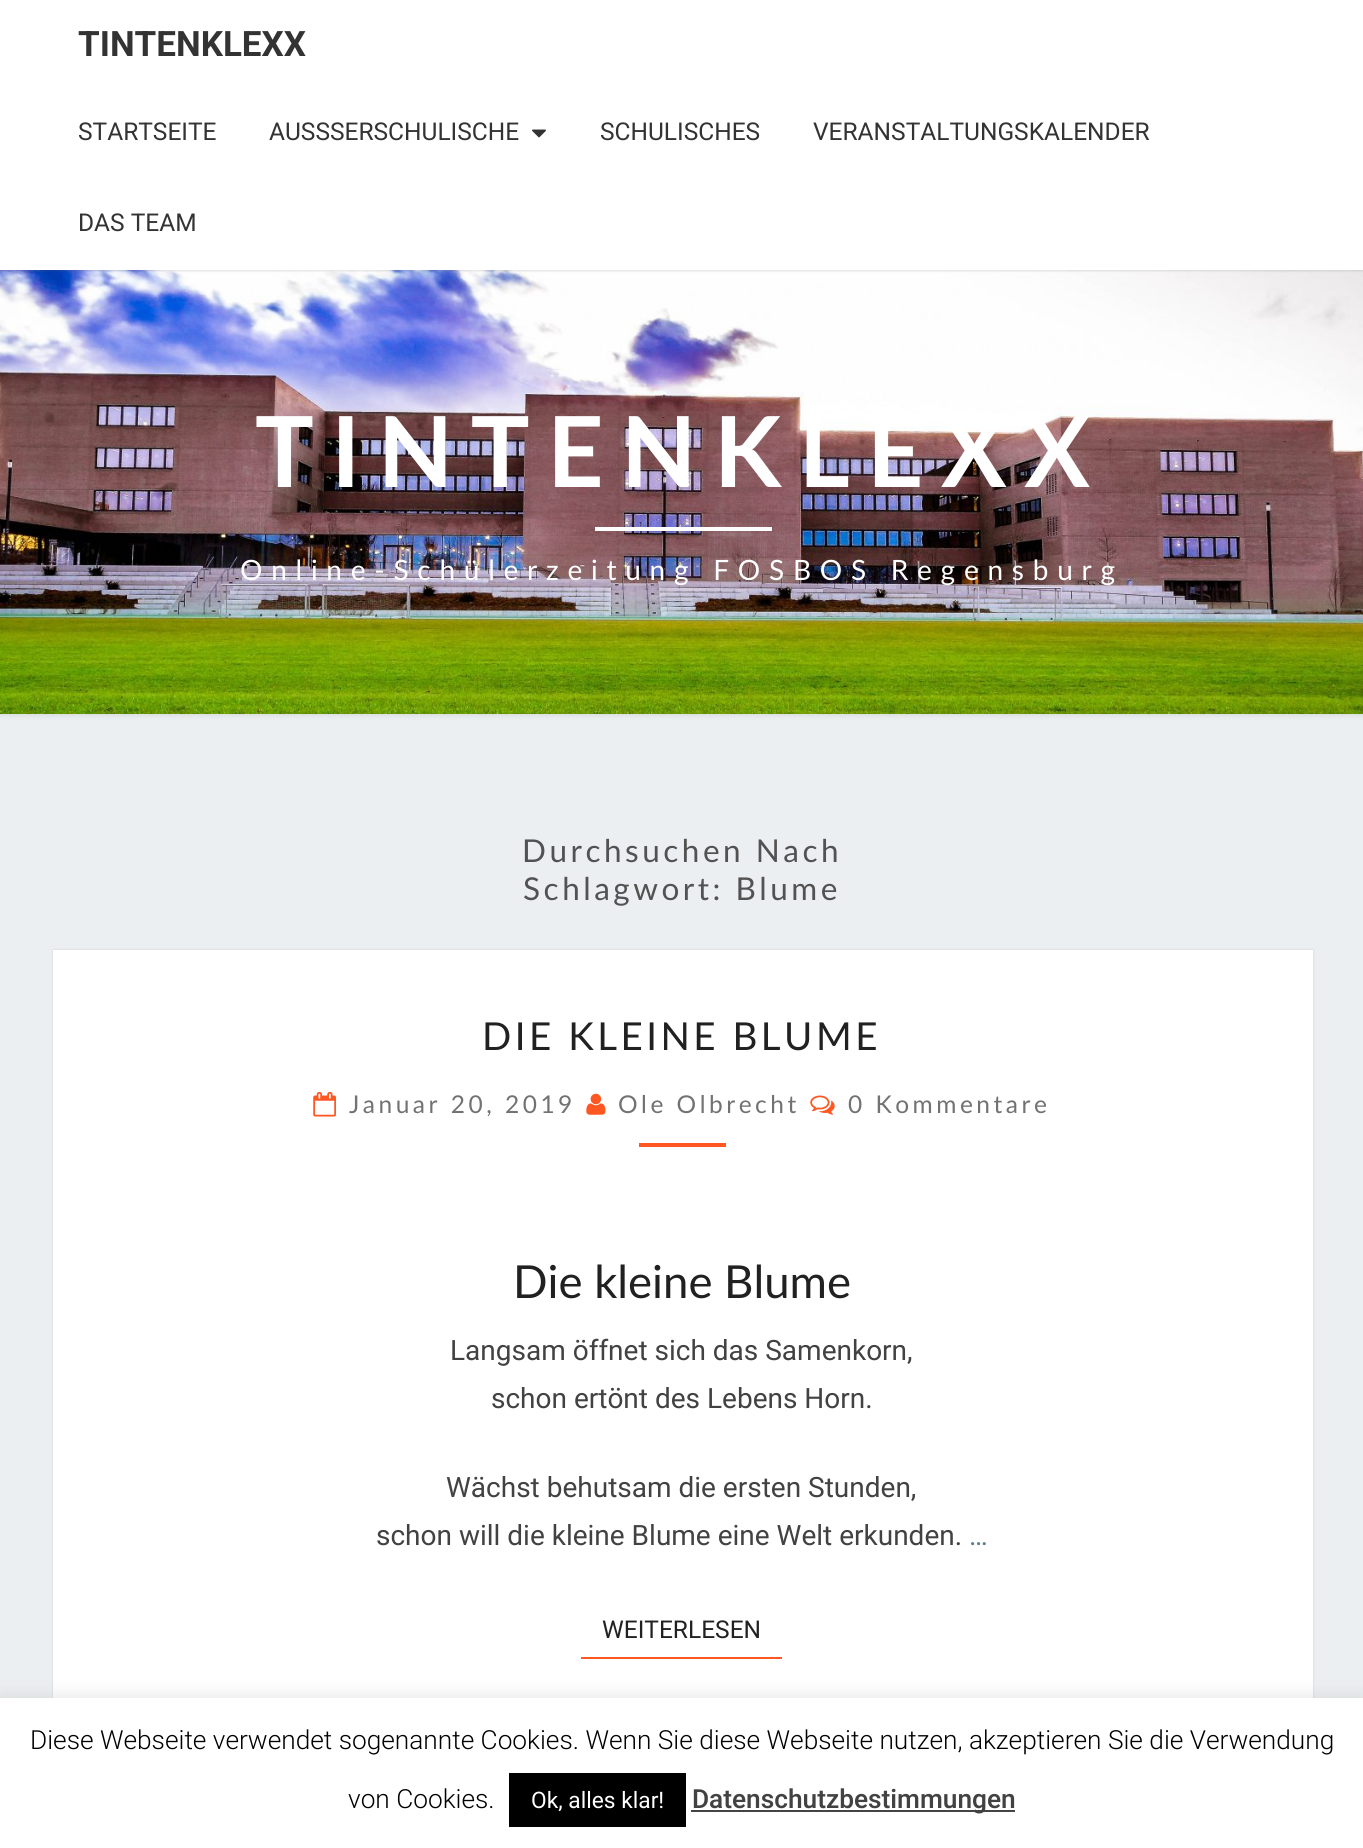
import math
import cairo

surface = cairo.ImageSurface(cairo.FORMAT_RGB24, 1363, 1848)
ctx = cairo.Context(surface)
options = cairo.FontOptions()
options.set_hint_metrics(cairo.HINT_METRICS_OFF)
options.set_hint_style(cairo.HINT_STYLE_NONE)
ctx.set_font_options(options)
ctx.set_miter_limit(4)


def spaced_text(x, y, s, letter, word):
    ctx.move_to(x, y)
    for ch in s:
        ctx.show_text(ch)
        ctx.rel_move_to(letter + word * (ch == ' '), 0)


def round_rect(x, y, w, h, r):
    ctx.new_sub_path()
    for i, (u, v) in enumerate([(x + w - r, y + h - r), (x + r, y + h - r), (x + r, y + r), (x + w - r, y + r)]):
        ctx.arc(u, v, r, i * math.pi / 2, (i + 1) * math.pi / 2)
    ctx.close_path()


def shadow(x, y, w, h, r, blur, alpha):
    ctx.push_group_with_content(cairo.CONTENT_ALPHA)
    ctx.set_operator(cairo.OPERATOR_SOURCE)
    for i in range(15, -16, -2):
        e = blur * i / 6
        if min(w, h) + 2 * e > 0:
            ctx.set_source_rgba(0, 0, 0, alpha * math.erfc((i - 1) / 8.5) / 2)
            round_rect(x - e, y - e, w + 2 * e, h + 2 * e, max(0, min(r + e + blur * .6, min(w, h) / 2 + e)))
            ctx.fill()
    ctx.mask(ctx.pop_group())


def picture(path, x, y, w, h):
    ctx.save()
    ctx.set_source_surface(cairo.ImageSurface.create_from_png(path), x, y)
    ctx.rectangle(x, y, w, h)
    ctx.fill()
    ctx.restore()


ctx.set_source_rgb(0.925, 0.937, 0.945)
ctx.paint()
ctx.set_source_rgb(0.714, 0.714, 0.714)
shadow(-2, 268, 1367, 448, 0, 2, 0.3)
picture("img2.png", 0, 270, 1363, 444)
ctx.set_source_rgb(0.392, 0.392, 0.392)
shadow(0, 2, 1363, 269, 0, 1, 0.2)
ctx.set_source_rgb(1, 1, 1)
ctx.rectangle(0, 0, 1363, 270)
ctx.fill()
ctx.select_font_face("Roboto", cairo.FONT_SLANT_NORMAL, cairo.FONT_WEIGHT_BOLD)
ctx.set_font_size(35)
ctx.set_source_rgb(0.2, 0.2, 0.2)
ctx.move_to(78, 56)
ctx.show_text("TINTENKLEXX")
ctx.select_font_face("Roboto")
ctx.set_font_size(24.5)
ctx.move_to(78, 140)
ctx.show_text("STARTSEITE")
ctx.move_to(269, 140)
ctx.show_text("AUSSSERSCHULISCHE")
picture("img1.png", 532, 129, 14, 9)
ctx.move_to(600, 140)
ctx.show_text("SCHULISCHES")
ctx.move_to(813, 140)
ctx.show_text("VERANSTALTUNGSKALENDER")
ctx.move_to(78, 231)
ctx.show_text("DAS TEAM")
ctx.select_font_face("Lato", cairo.FONT_SLANT_NORMAL, cairo.FONT_WEIGHT_BOLD)
ctx.set_font_size(98)
ctx.set_source_rgb(1, 1, 1)
spaced_text(255, 487, "TINTENKLEXX", 17.5, 0)
ctx.rectangle(595, 527, 177, 4)
ctx.fill()
ctx.select_font_face("Lato")
ctx.set_font_size(28)
spaced_text(240, 580, "Online-Schülerzeitung FOSBOS Regensburg", 8.75, 0)
ctx.set_font_size(31.5)
ctx.set_source_rgb(0.322, 0.322, 0.322)
spaced_text(522, 862, "Durchsuchen Nach", 3.5, 0)
spaced_text(523, 900, "Schlagwort: Blume", 3.5, 0)
ctx.set_source_rgb(0, 0, 0)
shadow(53, 950, 1260, 835, 0, 1, 0.15)
ctx.set_source_rgb(1, 1, 1)
ctx.rectangle(53, 950, 1260, 748)
ctx.fill()
ctx.set_font_size(38.5)
ctx.set_source_rgb(0.129, 0.129, 0.129)
spaced_text(482, 1050, "DIE KLEINE BLUME", 3.5, 0)
picture("img3.png", 313, 1092, 23, 25)
ctx.set_font_size(24.5)
ctx.set_source_rgb(0.447, 0.447, 0.447)
spaced_text(349, 1113, "Januar 20, 2019", 3.5, 0)
picture("img4.png", 586, 1093, 20, 22)
spaced_text(618, 1113, "Ole Olbrecht", 3.5, 0)
picture("img5.png", 810, 1095, 25, 20)
spaced_text(848, 1113, "0 Kommentare", 3.5, 0)
ctx.set_source_rgb(1, 0.341, 0.133)
ctx.rectangle(639, 1143, 87, 4)
ctx.fill()
ctx.set_font_size(45.5)
ctx.set_source_rgb(0.129, 0.129, 0.129)
ctx.move_to(513, 1298)
ctx.show_text("Die kleine Blume")
ctx.select_font_face("Roboto")
ctx.set_font_size(28)
ctx.set_source_rgb(0.259, 0.259, 0.259)
ctx.move_to(450, 1360)
ctx.show_text("Langsam öffnet sich das Samenkorn,")
ctx.move_to(491, 1408)
ctx.show_text("schon ertönt des Lebens Horn.")
ctx.move_to(446, 1497)
ctx.show_text("Wächst behutsam die ersten Stunden,")
ctx.move_to(376, 1545)
ctx.show_text("schon will die kleine Blume eine Welt erkunden.")
ctx.set_source_rgb(0.376, 0.49, 0.545)
ctx.move_to(969, 1545)
ctx.show_text("…")
ctx.set_source_rgb(1, 0.341, 0.133)
ctx.rectangle(581, 1657, 201, 2)
ctx.fill()
ctx.set_font_size(24.5)
ctx.set_source_rgb(0.129, 0.129, 0.129)
ctx.move_to(602, 1638)
ctx.show_text("WEITERLESEN")
ctx.set_source_rgb(0.675, 0.671, 0.671)
shadow(0, 1696, 1363, 150, 0, 9, 0.3)
ctx.set_source_rgb(1, 1, 1)
ctx.rectangle(0, 1698, 1363, 150)
ctx.fill()
ctx.select_font_face("Roboto Light")
ctx.set_font_size(26.25)
ctx.set_source_rgb(0, 0, 0)
ctx.move_to(30, 1749)
ctx.show_text("Diese Webseite verwendet sogenannte Cookies. Wenn Sie diese Webseite nutzen, akzeptieren Sie die Verwendung")
ctx.move_to(348, 1808)
ctx.show_text("von Cookies.")
ctx.rectangle(509, 1773, 177, 54)
ctx.fill()
ctx.select_font_face("Roboto")
ctx.set_font_size(22.75)
ctx.set_source_rgb(1, 1, 1)
ctx.move_to(531, 1808)
ctx.show_text("Ok, alles klar!")
ctx.set_source_rgb(0.267, 0.267, 0.267)
ctx.rectangle(691, 1810, 324, 2)
ctx.fill()
ctx.select_font_face("Roboto Medium")
ctx.set_font_size(26.25)
ctx.set_source_rgb(0.259, 0.259, 0.259)
ctx.move_to(692, 1808)
ctx.show_text("Datenschutzbestimmungen")
surface.write_to_png("page.png")
